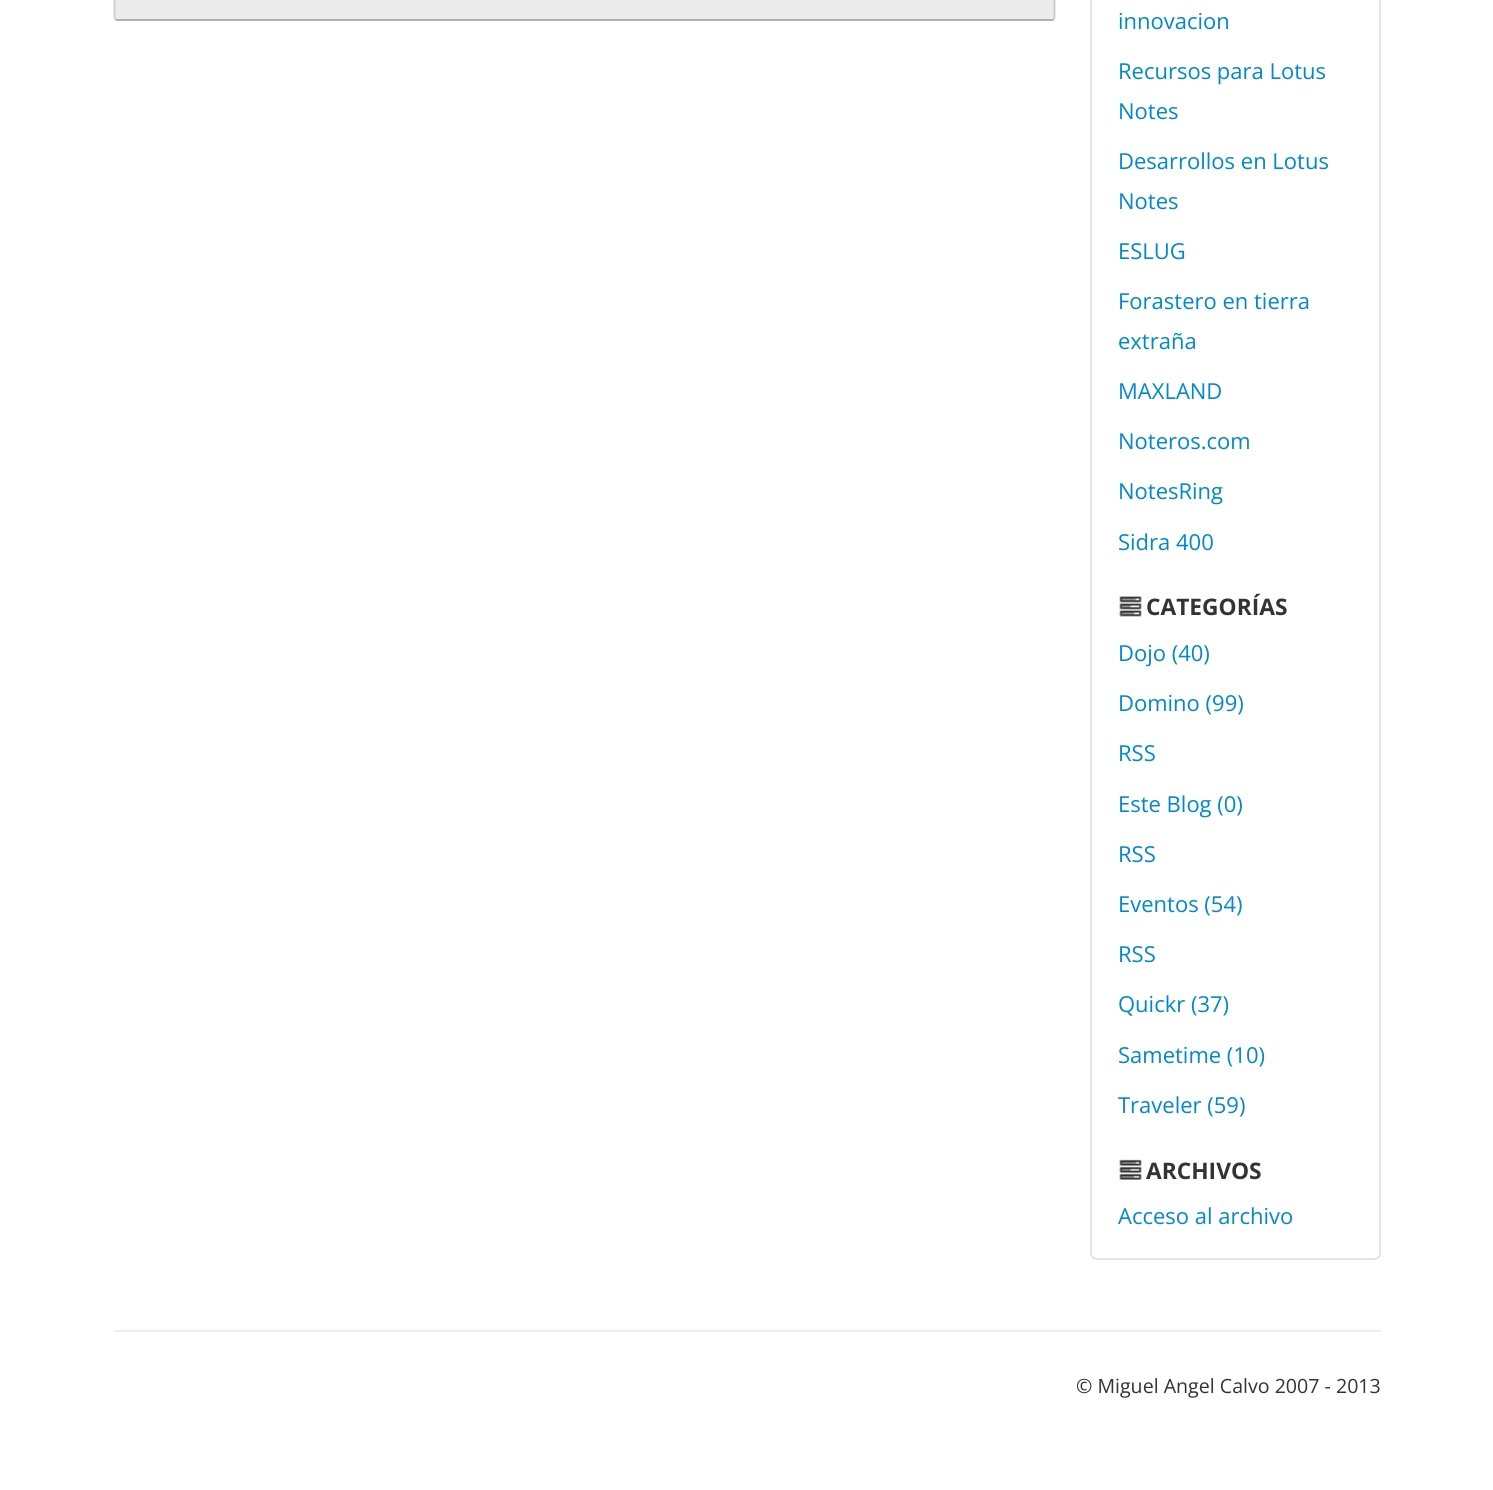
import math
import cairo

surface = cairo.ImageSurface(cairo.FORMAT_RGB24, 1493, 1490)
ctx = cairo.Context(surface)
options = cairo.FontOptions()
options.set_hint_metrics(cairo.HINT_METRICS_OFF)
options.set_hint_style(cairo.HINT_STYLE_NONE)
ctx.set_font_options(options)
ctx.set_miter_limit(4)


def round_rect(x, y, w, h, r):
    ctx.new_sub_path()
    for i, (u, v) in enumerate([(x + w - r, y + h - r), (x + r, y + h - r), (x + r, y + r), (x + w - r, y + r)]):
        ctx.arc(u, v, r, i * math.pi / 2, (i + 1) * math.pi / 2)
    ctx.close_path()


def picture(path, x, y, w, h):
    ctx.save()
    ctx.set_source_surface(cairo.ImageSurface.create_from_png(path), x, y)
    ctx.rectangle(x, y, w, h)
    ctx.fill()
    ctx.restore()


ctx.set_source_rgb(1, 1, 1)
ctx.paint()
ctx.set_source_rgb(0.918, 0.918, 0.918)
round_rect(114, -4, 941, 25, 4)
ctx.fill()
ctx.new_path()
ctx.move_to(1053.5, 19.5)
ctx.line_to(1052, 20)
ctx.line_to(117, 20)
ctx.line_to(115.5, 19.5)
ctx.set_source_rgb(0.667, 0.667, 0.667)
ctx.set_line_width(1.8)
ctx.stroke()
ctx.new_path()
ctx.move_to(115.5, 19.5)
ctx.line_to(114.5, 17.5)
ctx.line_to(114.5, -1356)
ctx.line_to(115.5, -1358)
ctx.line_to(117, -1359)
ctx.line_to(1052, -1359)
ctx.line_to(1053.5, -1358)
ctx.line_to(1054.5, -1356)
ctx.line_to(1054.5, 17.5)
ctx.line_to(1053.5, 19.5)
ctx.set_source_rgb(0.8, 0.8, 0.8)
ctx.stroke()
round_rect(1091, -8, 289, 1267, 6)
ctx.set_source_rgb(0.89, 0.89, 0.89)
ctx.set_line_width(2)
ctx.stroke()
ctx.select_font_face("Open Sans")
ctx.set_font_size(22)
ctx.set_source_rgb(0, 0.533, 0.8)
ctx.move_to(1118, 29)
ctx.show_text("innovacion")
ctx.move_to(1118, 79)
ctx.show_text("Recursos para Lotus")
ctx.move_to(1118, 119)
ctx.show_text("Notes")
ctx.move_to(1118, 169)
ctx.show_text("Desarrollos en Lotus")
ctx.move_to(1118, 209)
ctx.show_text("Notes")
ctx.move_to(1118, 259)
ctx.show_text("ESLUG")
ctx.move_to(1118, 309)
ctx.show_text("Forastero en tierra")
ctx.move_to(1118, 349)
ctx.show_text("extraña")
ctx.move_to(1118, 399)
ctx.show_text("MAXLAND")
ctx.move_to(1118, 449)
ctx.show_text("Noteros.com")
ctx.move_to(1118, 499)
ctx.show_text("NotesRing")
ctx.move_to(1118, 550)
ctx.show_text("Sidra 400")
picture("img1.png", 1119, 596, 23, 21)
ctx.select_font_face("Open Sans", cairo.FONT_SLANT_NORMAL, cairo.FONT_WEIGHT_BOLD)
ctx.set_font_size(22.75)
ctx.set_source_rgb(0.2, 0.2, 0.2)
ctx.move_to(1146, 615)
ctx.show_text("CATEGORÍAS")
ctx.select_font_face("Open Sans")
ctx.set_font_size(22)
ctx.set_source_rgb(0, 0.533, 0.8)
ctx.move_to(1118, 661)
ctx.show_text("Dojo (40)")
ctx.move_to(1118, 711)
ctx.show_text("Domino (99)")
ctx.move_to(1118, 761)
ctx.show_text("RSS")
ctx.move_to(1118, 812)
ctx.show_text("Este Blog (0)")
ctx.move_to(1118, 862)
ctx.show_text("RSS")
ctx.move_to(1118, 912)
ctx.show_text("Eventos (54)")
ctx.move_to(1118, 962)
ctx.show_text("RSS")
ctx.move_to(1118, 1012)
ctx.show_text("Quickr (37)")
ctx.move_to(1118, 1063)
ctx.show_text("Sametime (10)")
ctx.move_to(1118, 1113)
ctx.show_text("Traveler (59)")
picture("img2.png", 1119, 1159, 23, 21)
ctx.select_font_face("Open Sans", cairo.FONT_SLANT_NORMAL, cairo.FONT_WEIGHT_BOLD)
ctx.set_font_size(22.75)
ctx.set_source_rgb(0.2, 0.2, 0.2)
ctx.move_to(1146, 1179)
ctx.show_text("ARCHIVOS")
ctx.select_font_face("Open Sans")
ctx.set_font_size(22)
ctx.set_source_rgb(0, 0.533, 0.8)
ctx.move_to(1118, 1224)
ctx.show_text("Acceso al archivo")
ctx.set_source_rgb(0.933, 0.933, 0.933)
ctx.rectangle(114, 1330, 1267, 2)
ctx.fill()
ctx.set_font_size(19.6)
ctx.set_source_rgb(0.2, 0.2, 0.2)
ctx.move_to(1076, 1393)
ctx.show_text("© Miguel Angel Calvo 2007 - 2013")
surface.write_to_png("page.png")
